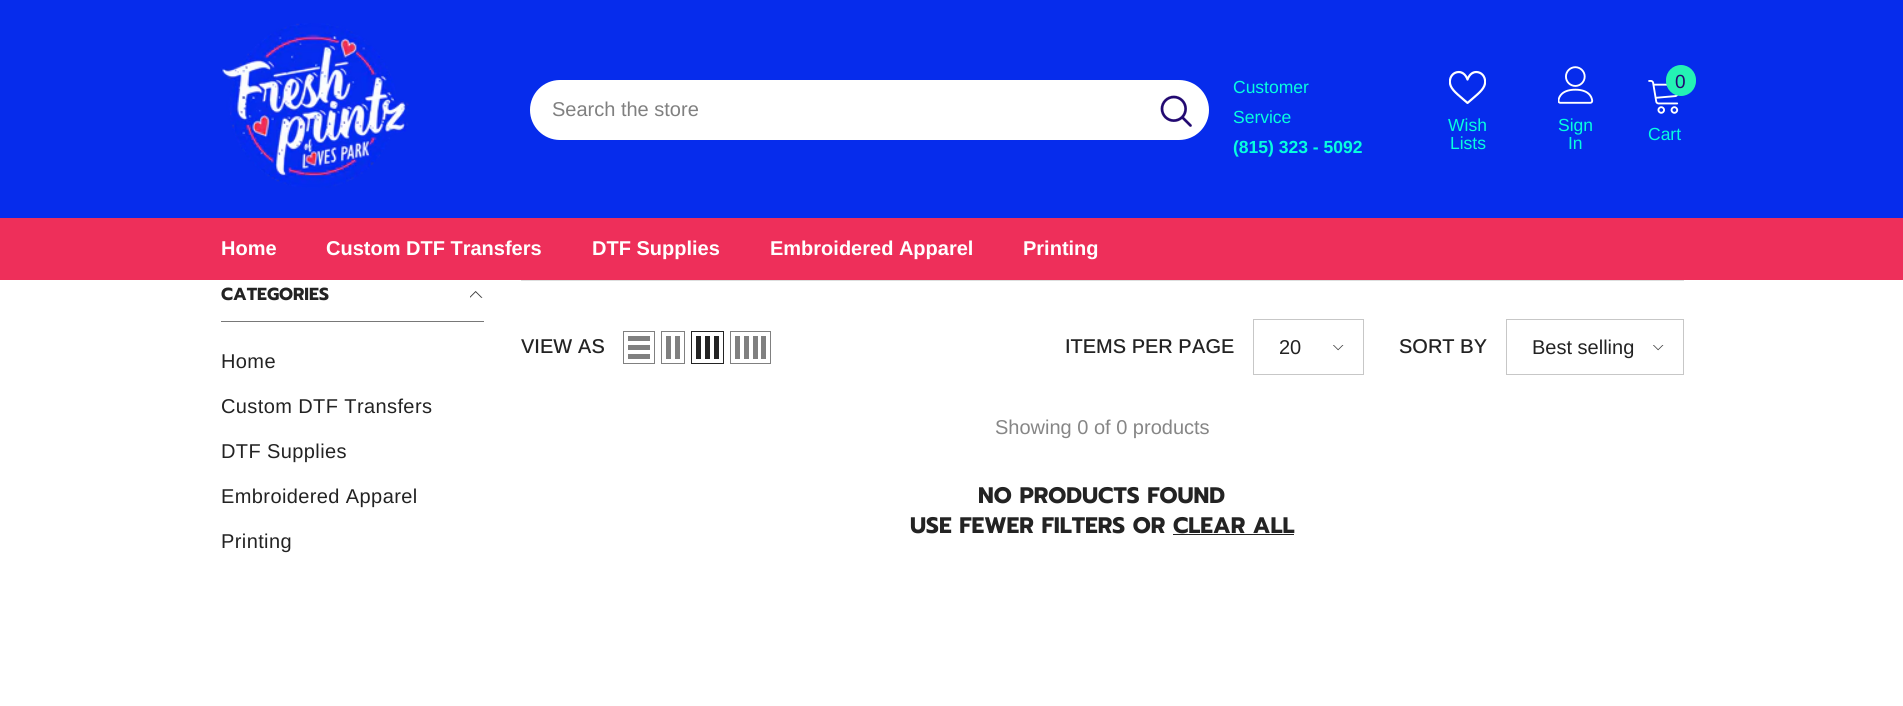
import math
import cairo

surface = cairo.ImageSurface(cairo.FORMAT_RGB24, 1903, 706)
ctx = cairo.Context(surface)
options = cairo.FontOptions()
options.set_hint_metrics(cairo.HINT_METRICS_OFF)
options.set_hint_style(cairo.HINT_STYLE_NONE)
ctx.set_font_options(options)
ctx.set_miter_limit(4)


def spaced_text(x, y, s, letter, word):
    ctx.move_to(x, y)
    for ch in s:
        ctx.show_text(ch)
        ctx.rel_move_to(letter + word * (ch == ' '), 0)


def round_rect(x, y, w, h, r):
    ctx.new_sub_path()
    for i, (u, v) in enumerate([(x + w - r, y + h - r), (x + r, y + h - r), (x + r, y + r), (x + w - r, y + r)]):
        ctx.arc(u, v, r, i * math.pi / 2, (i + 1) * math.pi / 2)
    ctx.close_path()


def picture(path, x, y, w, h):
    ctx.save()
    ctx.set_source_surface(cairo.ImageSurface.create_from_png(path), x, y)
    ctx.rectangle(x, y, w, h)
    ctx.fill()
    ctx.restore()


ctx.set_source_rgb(1, 1, 1)
ctx.paint()
ctx.set_source_rgb(0.024, 0.173, 0.925)
ctx.rectangle(0, 0, 1903, 218)
ctx.fill()
picture("img1.png", 221, 23, 188, 165)
ctx.set_source_rgb(1, 1, 1)
round_rect(530, 80, 679, 60, 30)
ctx.fill()
ctx.select_font_face("Arimo")
ctx.set_font_size(20)
ctx.set_source_rgb(0.502, 0.502, 0.502)
ctx.move_to(552, 116)
ctx.show_text("Search the store")
picture("img2.png", 1160, 95, 32, 32)
ctx.set_font_size(17.5)
ctx.set_source_rgb(0.024, 0.992, 0.875)
ctx.move_to(1233, 93)
ctx.show_text("Customer")
ctx.move_to(1233, 123)
ctx.show_text("Service")
ctx.select_font_face("Arimo", cairo.FONT_SLANT_NORMAL, cairo.FONT_WEIGHT_BOLD)
ctx.move_to(1233, 153)
ctx.show_text("(815) 323 - 5092")
picture("img3.png", 1449, 70, 37, 34)
ctx.select_font_face("Arimo")
ctx.move_to(1448, 131)
ctx.show_text("Wish")
ctx.move_to(1450, 149)
ctx.show_text("Lists")
picture("img4.png", 1558, 66, 36, 38)
ctx.move_to(1558, 131)
ctx.show_text("Sign")
ctx.move_to(1568, 149)
ctx.show_text("In")
picture("img5.png", 1648, 80, 31, 34)
ctx.set_source_rgb(0.141, 0.949, 0.706)
round_rect(1666, 65, 30, 31, 15)
ctx.fill()
ctx.set_font_size(19)
ctx.set_source_rgb(0.133, 0.035, 0.443)
ctx.move_to(1675, 88)
ctx.show_text("0")
ctx.set_font_size(17.5)
ctx.set_source_rgb(0.024, 0.992, 0.875)
ctx.move_to(1648, 140)
ctx.show_text("Cart")
ctx.set_source_rgb(0.933, 0.184, 0.353)
ctx.rectangle(0, 218, 1903, 62)
ctx.fill()
ctx.select_font_face("Arimo", cairo.FONT_SLANT_NORMAL, cairo.FONT_WEIGHT_BOLD)
ctx.set_font_size(20)
ctx.set_source_rgb(1, 1, 1)
ctx.move_to(221, 255)
ctx.show_text("Home")
ctx.move_to(326, 255)
ctx.show_text("Custom DTF Transfers")
ctx.move_to(592, 255)
ctx.show_text("DTF Supplies")
ctx.move_to(770, 255)
ctx.show_text("Embroidered Apparel")
ctx.move_to(1023, 255)
ctx.show_text("Printing")
ctx.set_source_rgb(0.471, 0.471, 0.471)
ctx.rectangle(221, 321, 263, 1)
ctx.fill()
ctx.select_font_face("Prompt", cairo.FONT_SLANT_NORMAL, cairo.FONT_WEIGHT_BOLD)
ctx.set_font_size(17.5)
ctx.set_source_rgb(0.137, 0.137, 0.137)
ctx.move_to(221, 300)
ctx.show_text("CATEGORIES")
picture("img6.png", 470, 291, 13, 7)
ctx.select_font_face("Arimo")
ctx.set_font_size(20)
spaced_text(221, 368, "Home", 0.4, 0)
spaced_text(221, 413, "Custom DTF Transfers", 0.4, 0)
spaced_text(221, 458, "DTF Supplies", 0.4, 0)
spaced_text(221, 503, "Embroidered Apparel", 0.4, 0)
spaced_text(221, 548, "Printing", 0.4, 0)
ctx.set_source_rgb(0.871, 0.871, 0.871)
ctx.rectangle(521, 280, 1163, 1)
ctx.fill()
ctx.select_font_face("Arimo Medium")
ctx.set_source_rgb(0.137, 0.137, 0.137)
ctx.move_to(521, 353)
ctx.show_text("VIEW AS")
ctx.rectangle(623.5, 331.5, 31, 32)
ctx.set_source_rgb(0.502, 0.502, 0.502)
ctx.set_line_width(1)
ctx.stroke()
ctx.rectangle(628, 354, 22, 5)
ctx.fill()
ctx.rectangle(628, 345, 22, 5)
ctx.fill()
ctx.rectangle(628, 336, 22, 5)
ctx.fill()
ctx.rectangle(661.5, 331.5, 23, 32)
ctx.stroke()
ctx.rectangle(675, 336, 5, 23)
ctx.fill()
ctx.rectangle(666, 336, 5, 23)
ctx.fill()
ctx.rectangle(691.5, 331.5, 32, 32)
ctx.set_source_rgb(0.137, 0.137, 0.137)
ctx.stroke()
ctx.rectangle(714, 336, 5, 23)
ctx.fill()
ctx.rectangle(705, 336, 5, 23)
ctx.fill()
ctx.rectangle(696, 336, 5, 23)
ctx.fill()
ctx.rectangle(730.5, 331.5, 40, 32)
ctx.set_source_rgb(0.502, 0.502, 0.502)
ctx.stroke()
ctx.rectangle(761, 336, 5, 23)
ctx.fill()
ctx.rectangle(753, 336, 5, 23)
ctx.fill()
ctx.rectangle(744, 336, 5, 23)
ctx.fill()
ctx.rectangle(735, 336, 5, 23)
ctx.fill()
ctx.set_source_rgb(0.137, 0.137, 0.137)
ctx.move_to(1065, 353)
ctx.show_text("ITEMS PER PAGE")
ctx.rectangle(1253.5, 319.5, 110, 55)
ctx.set_source_rgb(0.78, 0.78, 0.78)
ctx.stroke()
ctx.select_font_face("Arimo")
ctx.set_source_rgb(0.137, 0.137, 0.137)
ctx.move_to(1279, 354)
ctx.show_text("20")
picture("img7.png", 1333, 345, 11, 6)
ctx.select_font_face("Arimo Medium")
ctx.move_to(1399, 353)
ctx.show_text("SORT BY")
ctx.rectangle(1506.5, 319.5, 177, 55)
ctx.set_source_rgb(0.78, 0.78, 0.78)
ctx.stroke()
ctx.select_font_face("Arimo")
ctx.set_source_rgb(0.137, 0.137, 0.137)
ctx.move_to(1532, 354)
ctx.show_text("Best selling")
picture("img7.png", 1653, 345, 11, 6)
ctx.set_source_rgb(0.525, 0.525, 0.525)
ctx.move_to(995, 434)
ctx.show_text("Showing 0 of 0 products")
ctx.select_font_face("Prompt", cairo.FONT_SLANT_NORMAL, cairo.FONT_WEIGHT_BOLD)
ctx.set_font_size(22.5)
ctx.set_source_rgb(0.137, 0.137, 0.137)
ctx.move_to(978, 503)
ctx.show_text("NO PRODUCTS FOUND")
ctx.move_to(910, 533)
ctx.show_text("USE FEWER FILTERS OR CLEAR ALL")
ctx.rectangle(1173, 534, 121, 1)
ctx.fill()
surface.write_to_png("page.png")
